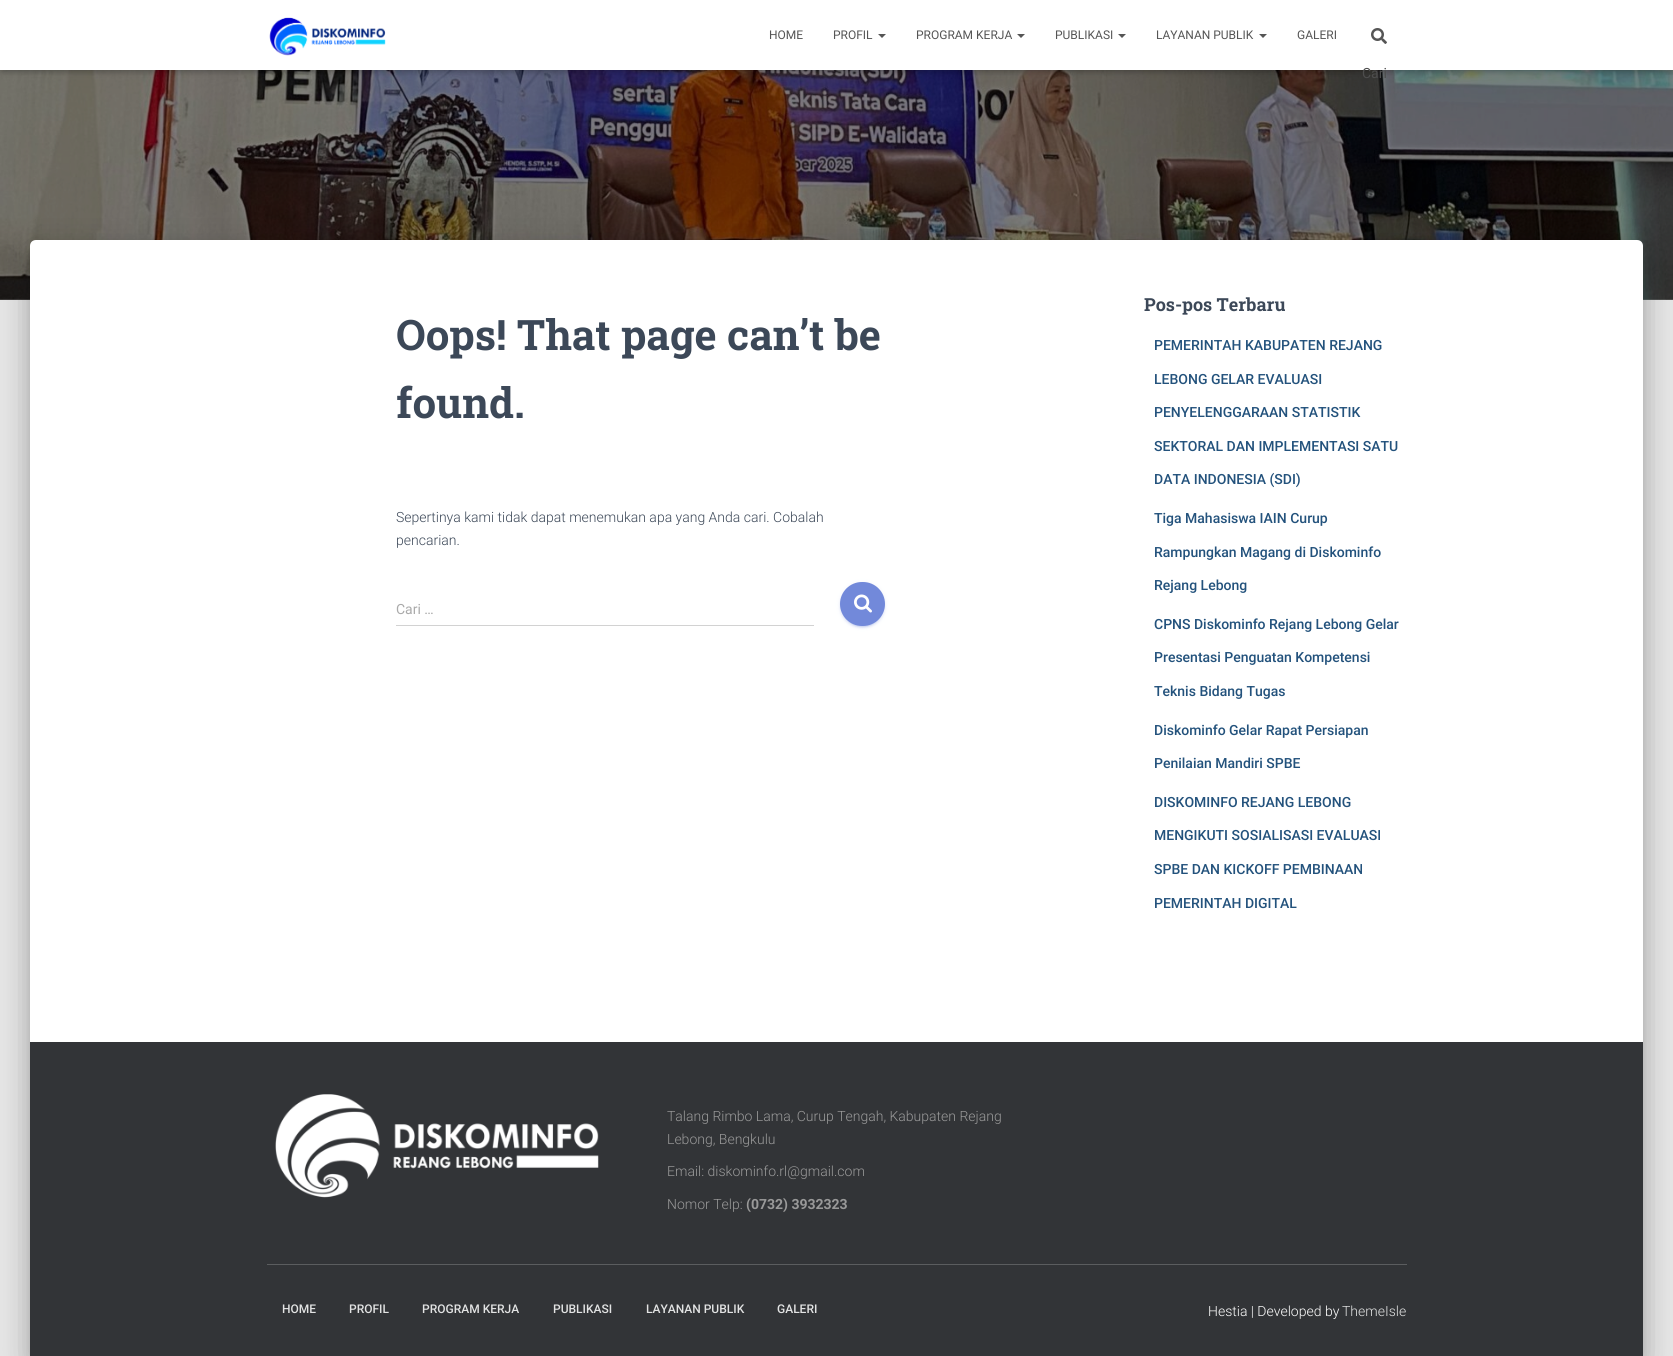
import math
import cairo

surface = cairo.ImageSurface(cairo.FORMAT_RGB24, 1673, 1356)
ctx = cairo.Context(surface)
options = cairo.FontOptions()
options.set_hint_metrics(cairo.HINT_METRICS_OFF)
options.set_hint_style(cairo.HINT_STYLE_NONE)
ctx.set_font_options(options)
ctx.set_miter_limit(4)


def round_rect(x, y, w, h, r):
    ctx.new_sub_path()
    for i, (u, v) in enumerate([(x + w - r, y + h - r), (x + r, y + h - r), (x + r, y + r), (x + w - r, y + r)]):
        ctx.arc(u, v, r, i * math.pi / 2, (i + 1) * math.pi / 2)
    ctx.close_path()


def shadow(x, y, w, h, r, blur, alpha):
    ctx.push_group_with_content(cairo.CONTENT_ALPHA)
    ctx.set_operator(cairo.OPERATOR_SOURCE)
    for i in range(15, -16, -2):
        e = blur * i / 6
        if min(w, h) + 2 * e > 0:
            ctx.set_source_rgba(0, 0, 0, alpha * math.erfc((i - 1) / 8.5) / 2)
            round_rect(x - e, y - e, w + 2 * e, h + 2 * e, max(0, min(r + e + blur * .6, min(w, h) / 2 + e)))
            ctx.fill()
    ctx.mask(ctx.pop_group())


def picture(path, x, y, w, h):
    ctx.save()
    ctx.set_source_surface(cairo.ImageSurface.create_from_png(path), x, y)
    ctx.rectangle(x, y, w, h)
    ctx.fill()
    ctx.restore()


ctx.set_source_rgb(0.898, 0.898, 0.898)
ctx.paint()
picture("img3.png", 0, 70, 1673, 230)
ctx.set_source_rgb(0, 0, 0)
shadow(2, 6, 1669, 66, 0, 2.5, 0.1)
shadow(0, 1, 1673, 70, 0, 5, 0.12)
shadow(6, 7, 1661, 58, 0, 5, 0.42)
ctx.set_source_rgb(1, 1, 1)
ctx.rectangle(0, 0, 1673, 70)
ctx.fill()
picture("img1.png", 269, 17, 117, 39)
ctx.select_font_face("Roboto")
ctx.set_font_size(12)
ctx.set_source_rgb(0.333, 0.333, 0.333)
ctx.move_to(769, 39)
ctx.show_text("HOME")
ctx.move_to(833, 39)
ctx.show_text("PROFIL")
ctx.new_path()
ctx.move_to(878, 34)
ctx.line_to(886, 34)
ctx.line_to(882, 38)
ctx.close_path()
ctx.fill()
ctx.move_to(916, 39)
ctx.show_text("PROGRAM KERJA")
ctx.new_path()
ctx.move_to(1017, 34)
ctx.line_to(1025, 34)
ctx.line_to(1021, 38)
ctx.close_path()
ctx.fill()
ctx.move_to(1055, 39)
ctx.show_text("PUBLIKASI")
ctx.new_path()
ctx.move_to(1118, 34)
ctx.line_to(1126, 34)
ctx.line_to(1122, 38)
ctx.close_path()
ctx.fill()
ctx.move_to(1156, 39)
ctx.show_text("LAYANAN PUBLIK")
ctx.new_path()
ctx.move_to(1259, 34)
ctx.line_to(1267, 34)
ctx.line_to(1263, 38)
ctx.close_path()
ctx.fill()
ctx.move_to(1297, 39)
ctx.show_text("GALERI")
picture("img2.png", 1371, 28, 16, 16)
ctx.set_font_size(14)
ctx.set_source_rgb(0.302, 0.302, 0.302)
ctx.move_to(1362, 78)
ctx.show_text("Cari")
ctx.set_source_rgb(0, 0, 0)
shadow(35, 253, 1603, 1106, 1, 5, 0.2)
shadow(25, 241, 1623, 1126, 11, 15, 0.12)
shadow(28, 254, 1617, 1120, 8, 12, 0.14)
ctx.set_source_rgb(1, 1, 1)
ctx.new_path()
ctx.move_to(36, 240)
ctx.line_to(1637, 240)
ctx.curve_to(1640.5, 240, 1643, 242.5, 1643, 246)
ctx.line_to(1643, 1356)
ctx.line_to(30, 1356)
ctx.line_to(30, 246)
ctx.curve_to(30, 242.5, 32.5, 240, 36, 240)
ctx.close_path()
ctx.fill()
ctx.select_font_face("Roboto Slab", cairo.FONT_SLANT_NORMAL, cairo.FONT_WEIGHT_BOLD)
ctx.set_font_size(42)
ctx.set_source_rgb(0.235, 0.282, 0.345)
ctx.move_to(396, 350)
ctx.show_text("Oops! That page can’t be")
ctx.move_to(396, 418)
ctx.show_text("found.")
ctx.select_font_face("Roboto Light")
ctx.set_font_size(14)
ctx.move_to(396, 522)
ctx.show_text("Sepertinya kami tidak dapat menemukan apa yang Anda cari. Cobalah")
ctx.move_to(396, 545)
ctx.show_text("pencarian.")
ctx.select_font_face("Roboto")
ctx.set_source_rgb(0.667, 0.667, 0.667)
ctx.move_to(396, 614)
ctx.show_text("Cari …")
ctx.set_source_rgb(0.824, 0.824, 0.824)
ctx.rectangle(396, 625, 418, 1)
ctx.fill()
ctx.set_source_rgb(0.447, 0.537, 0.855)
shadow(840, 583, 45, 44, 22, 2.5, 0.12)
shadow(842, 587, 41, 40, 20, 0.5, 0.2)
shadow(840, 584, 45, 44, 22, 1, 0.14)
ctx.set_source_rgb(0.447, 0.537, 0.855)
round_rect(840, 582, 45, 44, 22)
ctx.fill()
picture("img4.png", 854, 594, 18, 19)
ctx.select_font_face("Roboto Slab", cairo.FONT_SLANT_NORMAL, cairo.FONT_WEIGHT_BOLD)
ctx.set_font_size(18)
ctx.set_source_rgb(0.235, 0.282, 0.345)
ctx.move_to(1144, 311)
ctx.show_text("Pos-pos Terbaru")
ctx.select_font_face("Roboto Medium")
ctx.set_font_size(14)
ctx.set_source_rgb(0.137, 0.322, 0.486)
ctx.move_to(1154, 350)
ctx.show_text("PEMERINTAH KABUPATEN REJANG")
ctx.move_to(1154, 384)
ctx.show_text("LEBONG GELAR EVALUASI")
ctx.move_to(1154, 417)
ctx.show_text("PENYELENGGARAAN STATISTIK")
ctx.move_to(1154, 451)
ctx.show_text("SEKTORAL DAN IMPLEMENTASI SATU")
ctx.move_to(1154, 484)
ctx.show_text("DATA INDONESIA (SDI)")
ctx.move_to(1154, 523)
ctx.show_text("Tiga Mahasiswa IAIN Curup")
ctx.move_to(1154, 557)
ctx.show_text("Rampungkan Magang di Diskominfo")
ctx.move_to(1154, 590)
ctx.show_text("Rejang Lebong")
ctx.move_to(1154, 629)
ctx.show_text("CPNS Diskominfo Rejang Lebong Gelar")
ctx.move_to(1154, 662)
ctx.show_text("Presentasi Penguatan Kompetensi")
ctx.move_to(1154, 696)
ctx.show_text("Teknis Bidang Tugas")
ctx.move_to(1154, 735)
ctx.show_text("Diskominfo Gelar Rapat Persiapan")
ctx.move_to(1154, 768)
ctx.show_text("Penilaian Mandiri SPBE")
ctx.move_to(1154, 807)
ctx.show_text("DISKOMINFO REJANG LEBONG")
ctx.move_to(1154, 840)
ctx.show_text("MENGIKUTI SOSIALISASI EVALUASI")
ctx.move_to(1154, 874)
ctx.show_text("SPBE DAN KICKOFF PEMBINAAN")
ctx.move_to(1154, 908)
ctx.show_text("PEMERINTAH DIGITAL")
ctx.set_source_rgb(0.196, 0.204, 0.216)
ctx.rectangle(30, 1042, 1613, 314)
ctx.fill()
picture("img5.png", 275, 1094, 324, 104)
ctx.select_font_face("Roboto Light")
ctx.set_source_rgb(0.6, 0.6, 0.6)
ctx.move_to(667, 1121)
ctx.show_text("Talang Rimbo Lama, Curup Tengah, Kabupaten Rejang")
ctx.move_to(667, 1144)
ctx.show_text("Lebong, Bengkulu")
ctx.move_to(667, 1176)
ctx.show_text("Email: diskominfo.rl@gmail.com")
ctx.move_to(667, 1209)
ctx.show_text("Nomor Telp:")
ctx.select_font_face("Roboto", cairo.FONT_SLANT_NORMAL, cairo.FONT_WEIGHT_BOLD)
ctx.move_to(746, 1209)
ctx.show_text("(0732) 3932323")
ctx.set_source_rgb(0.357, 0.365, 0.373)
ctx.rectangle(267, 1264, 1140, 1)
ctx.fill()
ctx.select_font_face("Roboto Medium")
ctx.set_font_size(12)
ctx.set_source_rgb(0.886, 0.89, 0.89)
ctx.move_to(282, 1313)
ctx.show_text("HOME")
ctx.move_to(349, 1313)
ctx.show_text("PROFIL")
ctx.move_to(422, 1313)
ctx.show_text("PROGRAM KERJA")
ctx.move_to(553, 1313)
ctx.show_text("PUBLIKASI")
ctx.move_to(646, 1313)
ctx.show_text("LAYANAN PUBLIK")
ctx.move_to(777, 1313)
ctx.show_text("GALERI")
ctx.select_font_face("Roboto Light")
ctx.set_font_size(14)
ctx.set_source_rgb(1, 1, 1)
ctx.move_to(1208, 1316)
ctx.show_text("Hestia | Developed by")
ctx.set_source_rgb(0.886, 0.89, 0.89)
ctx.move_to(1342, 1316)
ctx.show_text("ThemeIsle")
surface.write_to_png("page.png")
